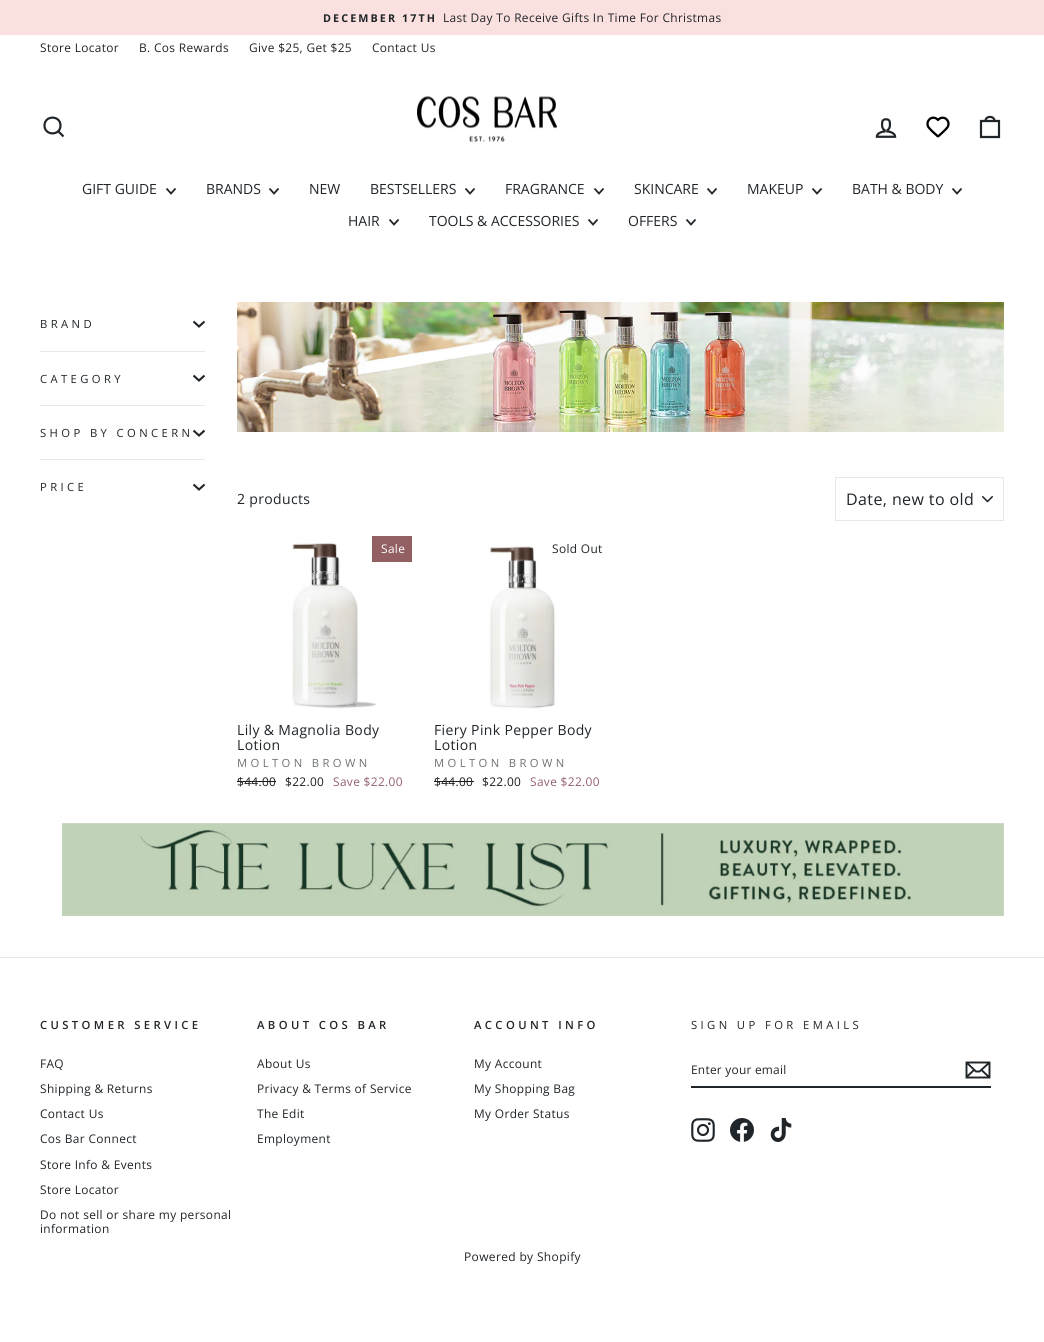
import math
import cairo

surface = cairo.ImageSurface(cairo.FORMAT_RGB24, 1044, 1342)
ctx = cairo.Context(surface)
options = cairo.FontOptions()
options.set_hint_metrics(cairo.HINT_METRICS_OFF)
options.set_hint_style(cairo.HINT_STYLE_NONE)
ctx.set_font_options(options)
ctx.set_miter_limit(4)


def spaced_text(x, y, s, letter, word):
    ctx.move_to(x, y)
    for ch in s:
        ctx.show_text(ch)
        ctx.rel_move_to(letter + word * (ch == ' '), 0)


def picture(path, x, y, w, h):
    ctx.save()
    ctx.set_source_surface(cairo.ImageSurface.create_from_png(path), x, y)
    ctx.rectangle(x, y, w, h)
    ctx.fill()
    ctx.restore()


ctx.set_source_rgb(1, 1, 1)
ctx.paint()
ctx.set_source_rgb(0.98, 0.878, 0.871)
ctx.rectangle(0, 0, 1044, 35)
ctx.fill()
ctx.select_font_face("Open Sans", cairo.FONT_SLANT_NORMAL, cairo.FONT_WEIGHT_BOLD)
ctx.set_font_size(10.75)
ctx.set_source_rgb(0.125, 0.145, 0.161)
spaced_text(323, 22, "DECEMBER 17TH", 2.1, 0)
ctx.select_font_face("Open Sans")
ctx.set_font_size(11.9)
spaced_text(443, 22, "Last Day To Receive Gifts In Time For Christmas", 0.35, 0)
spaced_text(40, 52, "Store Locator", 0.35, 0)
spaced_text(139, 52, "B. Cos Rewards", 0.35, 0)
spaced_text(249, 52, "Give $25, Get $25", 0.35, 0)
spaced_text(372, 52, "Contact Us", 0.35, 0)
ctx.new_path()
ctx.move_to(60.5, 125.5)
ctx.curve_to(60.5, 136, 44.5, 136, 44.5, 125.5)
ctx.curve_to(44.5, 115, 60.5, 115, 60.5, 125.5)
ctx.close_path()
ctx.move_to(63.5, 136.5)
ctx.line_to(58.5, 131.5)
ctx.set_line_width(2.2)
ctx.stroke()
picture("img1.png", 417, 96, 140, 46)
picture("img2.png", 875, 118, 22, 20)
picture("img3.png", 926, 116, 24, 22)
ctx.new_path()
ctx.move_to(981, 121)
ctx.line_to(999, 121)
ctx.line_to(999, 137)
ctx.line_to(981, 137)
ctx.close_path()
ctx.move_to(985.5, 121)
ctx.curve_to(985.5, 115.5, 994.5, 115.5, 994.5, 121)
ctx.stroke()
ctx.set_font_size(14)
ctx.move_to(82, 194)
ctx.show_text("GIFT GUIDE")
ctx.new_path()
ctx.move_to(166.5, 188.5)
ctx.line_to(171, 193.5)
ctx.line_to(175.5, 188.5)
ctx.set_line_width(1.8)
ctx.stroke()
ctx.move_to(206, 194)
ctx.show_text("BRANDS")
ctx.new_path()
ctx.move_to(269.5, 188.5)
ctx.line_to(274, 193.5)
ctx.line_to(278.5, 188.5)
ctx.stroke()
ctx.move_to(309, 194)
ctx.show_text("NEW")
ctx.move_to(370, 194)
ctx.show_text("BESTSELLERS")
ctx.new_path()
ctx.move_to(465.5, 188.5)
ctx.line_to(470, 193.5)
ctx.line_to(474.5, 188.5)
ctx.stroke()
ctx.move_to(505, 194)
ctx.show_text("FRAGRANCE")
ctx.new_path()
ctx.move_to(594.5, 188.5)
ctx.line_to(599, 193.5)
ctx.line_to(603.5, 188.5)
ctx.stroke()
ctx.move_to(634, 194)
ctx.show_text("SKINCARE")
ctx.new_path()
ctx.move_to(707.5, 188.5)
ctx.line_to(712, 193.5)
ctx.line_to(716.5, 188.5)
ctx.stroke()
ctx.move_to(747, 194)
ctx.show_text("MAKEUP")
ctx.new_path()
ctx.move_to(812.5, 188.5)
ctx.line_to(817, 193.5)
ctx.line_to(821.5, 188.5)
ctx.stroke()
ctx.move_to(852, 194)
ctx.show_text("BATH & BODY")
ctx.new_path()
ctx.move_to(952.5, 188.5)
ctx.line_to(957, 193.5)
ctx.line_to(961.5, 188.5)
ctx.stroke()
ctx.move_to(348, 226)
ctx.show_text("HAIR")
ctx.new_path()
ctx.move_to(389.5, 219.5)
ctx.line_to(394, 224.5)
ctx.line_to(398.5, 219.5)
ctx.stroke()
ctx.move_to(429, 226)
ctx.show_text("TOOLS & ACCESSORIES")
ctx.new_path()
ctx.move_to(588.5, 219.5)
ctx.line_to(593, 224.5)
ctx.line_to(597.5, 219.5)
ctx.stroke()
ctx.move_to(628, 226)
ctx.show_text("OFFERS")
ctx.new_path()
ctx.move_to(686.5, 219.5)
ctx.line_to(691, 224.5)
ctx.line_to(695.5, 219.5)
ctx.stroke()
ctx.set_font_size(11.25)
spaced_text(40, 328, "BRAND", 3.4, 0)
ctx.new_path()
ctx.move_to(193.5, 321.5)
ctx.line_to(199, 326.5)
ctx.line_to(204.5, 321.5)
ctx.set_line_width(2.1)
ctx.stroke()
ctx.set_source_rgb(0.91, 0.91, 0.882)
ctx.rectangle(40, 351, 165, 1)
ctx.fill()
ctx.set_source_rgb(0.125, 0.145, 0.161)
spaced_text(40, 383, "CATEGORY", 3.4, 0)
ctx.new_path()
ctx.move_to(193.5, 375.5)
ctx.line_to(199, 380.5)
ctx.line_to(204.5, 375.5)
ctx.stroke()
ctx.set_source_rgb(0.91, 0.91, 0.882)
ctx.rectangle(40, 405, 165, 1)
ctx.fill()
ctx.set_source_rgb(0.125, 0.145, 0.161)
spaced_text(40, 437, "SHOP BY CONCERN", 3.4, 0)
ctx.new_path()
ctx.move_to(193.5, 430.5)
ctx.line_to(199, 435.5)
ctx.line_to(204.5, 430.5)
ctx.stroke()
ctx.set_source_rgb(0.91, 0.91, 0.882)
ctx.rectangle(40, 459, 165, 1)
ctx.fill()
ctx.set_source_rgb(0.125, 0.145, 0.161)
spaced_text(40, 491, "PRICE", 3.4, 0)
ctx.new_path()
ctx.move_to(193.5, 484.5)
ctx.line_to(199, 489.5)
ctx.line_to(204.5, 484.5)
ctx.stroke()
picture("img4.png", 237, 302, 767, 130)
ctx.set_font_size(14)
spaced_text(237, 504, "2 products", 0.35, 0)
picture("img5.png", 982, 496, 11, 7)
ctx.rectangle(835.5, 477.5, 168, 43)
ctx.set_source_rgb(0.91, 0.91, 0.882)
ctx.set_line_width(1)
ctx.stroke()
ctx.set_font_size(16)
ctx.set_source_rgb(0.125, 0.145, 0.161)
spaced_text(846, 505, "Date, new to old", 0.4, 0)
picture("img6.png", 237, 536, 175, 176)
ctx.set_source_rgb(0.573, 0.373, 0.388)
ctx.rectangle(372, 536, 40, 26)
ctx.fill()
ctx.set_font_size(11.9)
ctx.set_source_rgb(1, 1, 1)
spaced_text(381, 553, "Sale", 0.35, 0)
ctx.set_font_size(14)
ctx.set_source_rgb(0.125, 0.145, 0.161)
spaced_text(237, 735, "Lily & Magnolia Body", 0.35, 0)
spaced_text(237, 750, "Lotion", 0.35, 0)
ctx.set_font_size(11.25)
ctx.set_source_rgb(0.431, 0.443, 0.455)
spaced_text(237, 767, "MOLTON BROWN", 3.4, 0)
ctx.set_font_size(11.9)
ctx.set_source_rgb(0.11, 0.114, 0.114)
spaced_text(237, 786, "$44.00", 0.35, 0)
ctx.rectangle(237, 781, 39, 1)
ctx.fill()
spaced_text(285, 786, "$22.00", 0.35, 0)
ctx.set_source_rgb(0.573, 0.373, 0.431)
spaced_text(333, 786, "Save $22.00", 0.35, 0)
picture("img7.png", 434, 536, 176, 176)
ctx.set_source_rgb(0.125, 0.145, 0.161)
spaced_text(552, 553, "Sold Out", 0.35, 0)
ctx.set_font_size(14)
spaced_text(434, 735, "Fiery Pink Pepper Body", 0.35, 0)
spaced_text(434, 750, "Lotion", 0.35, 0)
ctx.set_font_size(11.25)
ctx.set_source_rgb(0.431, 0.443, 0.455)
spaced_text(434, 767, "MOLTON BROWN", 3.4, 0)
ctx.set_font_size(11.9)
ctx.set_source_rgb(0.11, 0.114, 0.114)
spaced_text(434, 786, "$44.00", 0.35, 0)
ctx.rectangle(434, 781, 40, 1)
ctx.fill()
spaced_text(482, 786, "$22.00", 0.35, 0)
ctx.set_source_rgb(0.573, 0.373, 0.431)
spaced_text(530, 786, "Save $22.00", 0.35, 0)
picture("img8.png", 62, 823, 942, 93)
ctx.set_source_rgb(0.91, 0.91, 0.882)
ctx.rectangle(0, 957, 1044, 1)
ctx.fill()
ctx.select_font_face("Open Sans SemiBold")
ctx.set_font_size(11.25)
ctx.set_source_rgb(0.125, 0.145, 0.161)
spaced_text(40, 1029, "CUSTOMER SERVICE", 3.4, 0)
ctx.select_font_face("Open Sans")
ctx.set_font_size(11.9)
spaced_text(40, 1068, "FAQ", 0.35, 0)
spaced_text(40, 1093, "Shipping & Returns", 0.35, 0)
spaced_text(40, 1118, "Contact Us", 0.35, 0)
spaced_text(40, 1143, "Cos Bar Connect", 0.35, 0)
spaced_text(40, 1169, "Store Info & Events", 0.35, 0)
spaced_text(40, 1194, "Store Locator", 0.35, 0)
spaced_text(40, 1219, "Do not sell or share my personal", 0.35, 0)
spaced_text(40, 1233, "information", 0.35, 0)
ctx.select_font_face("Open Sans SemiBold")
ctx.set_font_size(11.25)
spaced_text(257, 1029, "ABOUT COS BAR", 3.4, 0)
ctx.select_font_face("Open Sans")
ctx.set_font_size(11.9)
spaced_text(257, 1068, "About Us", 0.35, 0)
spaced_text(257, 1093, "Privacy & Terms of Service", 0.35, 0)
spaced_text(257, 1118, "The Edit", 0.35, 0)
spaced_text(257, 1143, "Employment", 0.35, 0)
ctx.select_font_face("Open Sans SemiBold")
ctx.set_font_size(11.25)
spaced_text(474, 1029, "ACCOUNT INFO", 3.4, 0)
ctx.select_font_face("Open Sans")
ctx.set_font_size(11.9)
spaced_text(474, 1068, "My Account", 0.35, 0)
spaced_text(474, 1093, "My Shopping Bag", 0.35, 0)
spaced_text(474, 1118, "My Order Status", 0.35, 0)
ctx.set_font_size(11.25)
spaced_text(691, 1029, "SIGN UP FOR EMAILS", 3.4, 0)
ctx.rectangle(691, 1086, 300, 2)
ctx.fill()
ctx.set_font_size(11.9)
spaced_text(691, 1074, "Enter your email", 0.25, 0)
ctx.new_path()
ctx.move_to(989.5, 1077.5)
ctx.line_to(966.5, 1077.5)
ctx.line_to(966.5, 1062.5)
ctx.line_to(989.5, 1062.5)
ctx.close_path()
ctx.move_to(966.5, 1062.5)
ctx.line_to(976, 1071.5)
ctx.line_to(979.5, 1071.5)
ctx.line_to(989.5, 1062.5)
ctx.move_to(974, 1070)
ctx.line_to(966.5, 1077)
ctx.move_to(989.5, 1077.5)
ctx.line_to(981.5, 1070)
ctx.set_line_width(1.9)
ctx.stroke()
picture("img9.png", 691, 1118, 24, 24)
picture("img10.png", 730, 1118, 24, 24)
picture("img11.png", 770, 1118, 22, 24)
ctx.set_font_size(12)
spaced_text(464, 1261, "Powered by Shopify", 0.35, 0)
surface.write_to_png("page.png")
